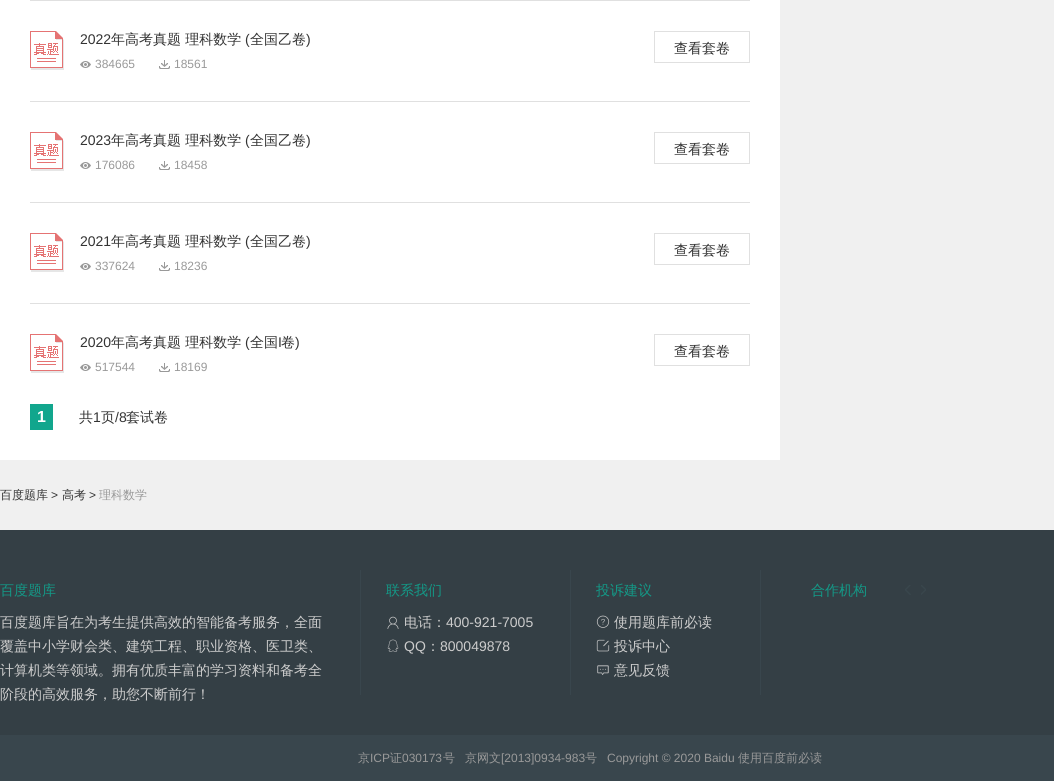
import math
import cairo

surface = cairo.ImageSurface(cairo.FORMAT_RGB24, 1054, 781)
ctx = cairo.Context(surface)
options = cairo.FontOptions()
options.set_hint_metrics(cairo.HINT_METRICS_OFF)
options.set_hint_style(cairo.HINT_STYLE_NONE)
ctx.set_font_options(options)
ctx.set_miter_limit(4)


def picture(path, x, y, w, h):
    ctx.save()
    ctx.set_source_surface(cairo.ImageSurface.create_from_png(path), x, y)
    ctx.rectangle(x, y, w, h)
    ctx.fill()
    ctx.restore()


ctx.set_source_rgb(0.941, 0.941, 0.941)
ctx.paint()
ctx.set_source_rgb(1, 1, 1)
ctx.rectangle(0, 0, 780, 460)
ctx.fill()
ctx.set_source_rgb(0.878, 0.878, 0.878)
ctx.rectangle(30, 0, 720, 1)
ctx.fill()
picture("img1.png", 30, 31, 34, 39)
ctx.select_font_face("Liberation Sans")
ctx.set_font_size(14)
ctx.set_source_rgb(0.2, 0.2, 0.2)
ctx.move_to(80, 44)
ctx.show_text("2022")
ctx.select_font_face("WenQuanYi Zen Hei Medium")
ctx.move_to(111, 44)
ctx.show_text("年高考真题 理科数学")
ctx.select_font_face("Liberation Sans")
ctx.move_to(245, 44)
ctx.show_text("(")
ctx.select_font_face("WenQuanYi Zen Hei Medium")
ctx.move_to(250, 44)
ctx.show_text("全国乙卷")
ctx.select_font_face("Liberation Sans")
ctx.move_to(306, 44)
ctx.show_text(")")
picture("img2.png", 80, 61, 11, 7)
ctx.set_font_size(12)
ctx.set_source_rgb(0.6, 0.6, 0.6)
ctx.move_to(95, 68)
ctx.show_text("384665")
picture("img3.png", 159, 60, 11, 9)
ctx.move_to(174, 68)
ctx.show_text("18561")
ctx.rectangle(654.5, 31.5, 95, 31)
ctx.set_source_rgb(0.878, 0.878, 0.878)
ctx.set_line_width(1)
ctx.stroke()
ctx.select_font_face("WenQuanYi Zen Hei Medium")
ctx.set_font_size(14)
ctx.set_source_rgb(0.2, 0.2, 0.2)
ctx.move_to(674, 53)
ctx.show_text("查看套卷")
ctx.set_source_rgb(0.878, 0.878, 0.878)
ctx.rectangle(30, 101, 720, 1)
ctx.fill()
picture("img1.png", 30, 132, 34, 39)
ctx.select_font_face("Liberation Sans")
ctx.set_source_rgb(0.2, 0.2, 0.2)
ctx.move_to(80, 145)
ctx.show_text("2023")
ctx.select_font_face("WenQuanYi Zen Hei Medium")
ctx.move_to(111, 145)
ctx.show_text("年高考真题 理科数学")
ctx.select_font_face("Liberation Sans")
ctx.move_to(245, 145)
ctx.show_text("(")
ctx.select_font_face("WenQuanYi Zen Hei Medium")
ctx.move_to(250, 145)
ctx.show_text("全国乙卷")
ctx.select_font_face("Liberation Sans")
ctx.move_to(306, 145)
ctx.show_text(")")
picture("img2.png", 80, 162, 11, 7)
ctx.set_font_size(12)
ctx.set_source_rgb(0.6, 0.6, 0.6)
ctx.move_to(95, 169)
ctx.show_text("176086")
picture("img3.png", 159, 161, 11, 9)
ctx.move_to(174, 169)
ctx.show_text("18458")
ctx.rectangle(654.5, 132.5, 95, 31)
ctx.set_source_rgb(0.878, 0.878, 0.878)
ctx.stroke()
ctx.select_font_face("WenQuanYi Zen Hei Medium")
ctx.set_font_size(14)
ctx.set_source_rgb(0.2, 0.2, 0.2)
ctx.move_to(674, 154)
ctx.show_text("查看套卷")
ctx.set_source_rgb(0.878, 0.878, 0.878)
ctx.rectangle(30, 202, 720, 1)
ctx.fill()
picture("img1.png", 30, 233, 34, 39)
ctx.select_font_face("Liberation Sans")
ctx.set_source_rgb(0.2, 0.2, 0.2)
ctx.move_to(80, 246)
ctx.show_text("2021")
ctx.select_font_face("WenQuanYi Zen Hei Medium")
ctx.move_to(111, 246)
ctx.show_text("年高考真题 理科数学")
ctx.select_font_face("Liberation Sans")
ctx.move_to(245, 246)
ctx.show_text("(")
ctx.select_font_face("WenQuanYi Zen Hei Medium")
ctx.move_to(250, 246)
ctx.show_text("全国乙卷")
ctx.select_font_face("Liberation Sans")
ctx.move_to(306, 246)
ctx.show_text(")")
picture("img2.png", 80, 263, 11, 7)
ctx.set_font_size(12)
ctx.set_source_rgb(0.6, 0.6, 0.6)
ctx.move_to(95, 270)
ctx.show_text("337624")
picture("img3.png", 159, 262, 11, 9)
ctx.move_to(174, 270)
ctx.show_text("18236")
ctx.rectangle(654.5, 233.5, 95, 31)
ctx.set_source_rgb(0.878, 0.878, 0.878)
ctx.stroke()
ctx.select_font_face("WenQuanYi Zen Hei Medium")
ctx.set_font_size(14)
ctx.set_source_rgb(0.2, 0.2, 0.2)
ctx.move_to(674, 255)
ctx.show_text("查看套卷")
ctx.set_source_rgb(0.878, 0.878, 0.878)
ctx.rectangle(30, 303, 720, 1)
ctx.fill()
picture("img1.png", 30, 334, 34, 39)
ctx.select_font_face("Liberation Sans")
ctx.set_source_rgb(0.2, 0.2, 0.2)
ctx.move_to(80, 347)
ctx.show_text("2020")
ctx.select_font_face("WenQuanYi Zen Hei Medium")
ctx.move_to(111, 347)
ctx.show_text("年高考真题 理科数学")
ctx.select_font_face("Liberation Sans")
ctx.move_to(245, 347)
ctx.show_text("(")
ctx.select_font_face("WenQuanYi Zen Hei Medium")
ctx.move_to(250, 347)
ctx.show_text("全国")
ctx.select_font_face("Liberation Sans")
ctx.move_to(278, 347)
ctx.show_text("I")
ctx.select_font_face("WenQuanYi Zen Hei Medium")
ctx.move_to(281, 347)
ctx.show_text("卷")
ctx.select_font_face("Liberation Sans")
ctx.move_to(295, 347)
ctx.show_text(")")
picture("img2.png", 80, 364, 11, 7)
ctx.set_font_size(12)
ctx.set_source_rgb(0.6, 0.6, 0.6)
ctx.move_to(95, 371)
ctx.show_text("517544")
picture("img3.png", 159, 363, 11, 9)
ctx.move_to(174, 371)
ctx.show_text("18169")
ctx.rectangle(654.5, 334.5, 95, 31)
ctx.set_source_rgb(0.878, 0.878, 0.878)
ctx.stroke()
ctx.select_font_face("WenQuanYi Zen Hei Medium")
ctx.set_font_size(14)
ctx.set_source_rgb(0.2, 0.2, 0.2)
ctx.move_to(674, 356)
ctx.show_text("查看套卷")
ctx.set_source_rgb(0.067, 0.651, 0.553)
ctx.rectangle(30, 404, 23, 26)
ctx.fill()
ctx.select_font_face("Liberation Sans", cairo.FONT_SLANT_NORMAL, cairo.FONT_WEIGHT_BOLD)
ctx.set_font_size(16)
ctx.set_source_rgb(1, 1, 1)
ctx.move_to(37, 422)
ctx.show_text("1")
ctx.select_font_face("WenQuanYi Zen Hei Medium")
ctx.set_font_size(14)
ctx.set_source_rgb(0.2, 0.2, 0.2)
ctx.move_to(79, 422)
ctx.show_text("共")
ctx.select_font_face("Liberation Sans")
ctx.move_to(93, 422)
ctx.show_text("1")
ctx.select_font_face("WenQuanYi Zen Hei Medium")
ctx.move_to(101, 422)
ctx.show_text("页")
ctx.select_font_face("Liberation Sans")
ctx.move_to(115, 422)
ctx.show_text("/8")
ctx.select_font_face("WenQuanYi Zen Hei Medium")
ctx.move_to(126, 422)
ctx.show_text("套试卷")
ctx.set_font_size(12)
ctx.move_to(0, 499)
ctx.show_text("百度题库")
ctx.select_font_face("Liberation Sans")
ctx.move_to(51, 499)
ctx.show_text(">")
ctx.select_font_face("WenQuanYi Zen Hei Medium")
ctx.move_to(62, 499)
ctx.show_text("高考")
ctx.select_font_face("Liberation Sans")
ctx.move_to(89, 499)
ctx.show_text(">")
ctx.select_font_face("WenQuanYi Zen Hei Medium")
ctx.set_source_rgb(0.6, 0.6, 0.6)
ctx.move_to(99, 499)
ctx.show_text("理科数学")
ctx.set_source_rgb(0.204, 0.247, 0.271)
ctx.rectangle(0, 530, 1054, 205)
ctx.fill()
ctx.set_source_rgb(0.224, 0.275, 0.302)
ctx.rectangle(360, 570, 1, 125)
ctx.fill()
ctx.set_font_size(14)
ctx.set_source_rgb(0.078, 0.6, 0.529)
ctx.move_to(0, 595)
ctx.show_text("百度题库")
ctx.set_source_rgb(0.8, 0.8, 0.8)
ctx.move_to(0, 627)
ctx.show_text("百度题库旨在为考生提供高效的智能备考服务，全面")
ctx.move_to(0, 651)
ctx.show_text("覆盖中小学财会类、建筑工程、职业资格、医卫类、")
ctx.move_to(0, 675)
ctx.show_text("计算机类等领域。拥有优质丰富的学习资料和备考全")
ctx.move_to(0, 699)
ctx.show_text("阶段的高效服务，助您不断前行！")
ctx.set_source_rgb(0.224, 0.275, 0.302)
ctx.rectangle(570, 570, 1, 125)
ctx.fill()
ctx.set_source_rgb(0.078, 0.6, 0.529)
ctx.move_to(386, 595)
ctx.show_text("联系我们")
picture("img4.png", 387, 616, 12, 13)
ctx.set_source_rgb(0.8, 0.8, 0.8)
ctx.move_to(404, 627)
ctx.show_text("电话：")
ctx.select_font_face("Liberation Sans")
ctx.move_to(446, 627)
ctx.show_text("400-921-7005")
picture("img5.png", 387, 639, 12, 13)
ctx.move_to(404, 651)
ctx.show_text("QQ")
ctx.select_font_face("WenQuanYi Zen Hei Medium")
ctx.move_to(426, 651)
ctx.show_text("：")
ctx.select_font_face("Liberation Sans")
ctx.move_to(440, 651)
ctx.show_text("800049878")
ctx.set_source_rgb(0.224, 0.275, 0.302)
ctx.rectangle(760, 570, 1, 125)
ctx.fill()
ctx.select_font_face("WenQuanYi Zen Hei Medium")
ctx.set_source_rgb(0.078, 0.6, 0.529)
ctx.move_to(596, 595)
ctx.show_text("投诉建议")
picture("img6.png", 596, 615, 14, 13)
ctx.set_source_rgb(0.8, 0.8, 0.8)
ctx.move_to(614, 627)
ctx.show_text("使用题库前必读")
picture("img7.png", 596, 639, 14, 13)
ctx.move_to(614, 651)
ctx.show_text("投诉中心")
picture("img8.png", 597, 665, 12, 10)
ctx.move_to(614, 675)
ctx.show_text("意见反馈")
ctx.set_source_rgb(0.078, 0.6, 0.529)
ctx.move_to(811, 595)
ctx.show_text("合作机构")
picture("img9.png", 905, 585, 6, 10)
picture("img10.png", 921, 585, 5, 10)
ctx.set_source_rgb(0.224, 0.275, 0.302)
ctx.rectangle(0, 735, 1054, 46)
ctx.fill()
ctx.set_font_size(12)
ctx.set_source_rgb(0.6, 0.6, 0.6)
ctx.move_to(358, 762)
ctx.show_text("京")
ctx.select_font_face("Liberation Sans")
ctx.move_to(370, 762)
ctx.show_text("ICP")
ctx.select_font_face("WenQuanYi Zen Hei Medium")
ctx.move_to(390, 762)
ctx.show_text("证")
ctx.select_font_face("Liberation Sans")
ctx.move_to(402, 762)
ctx.show_text("030173")
ctx.select_font_face("WenQuanYi Zen Hei Medium")
ctx.move_to(443, 762)
ctx.show_text("号")
ctx.move_to(465, 762)
ctx.show_text("京网文")
ctx.select_font_face("Liberation Sans")
ctx.move_to(501, 762)
ctx.show_text("[2013]0934-983")
ctx.select_font_face("WenQuanYi Zen Hei Medium")
ctx.move_to(585, 762)
ctx.show_text("号")
ctx.select_font_face("Liberation Sans")
ctx.move_to(607, 762)
ctx.show_text("Copyright © 2020 Baidu")
ctx.select_font_face("WenQuanYi Zen Hei Medium")
ctx.move_to(738, 762)
ctx.show_text("使用百度前必读")
surface.write_to_png("page.png")
